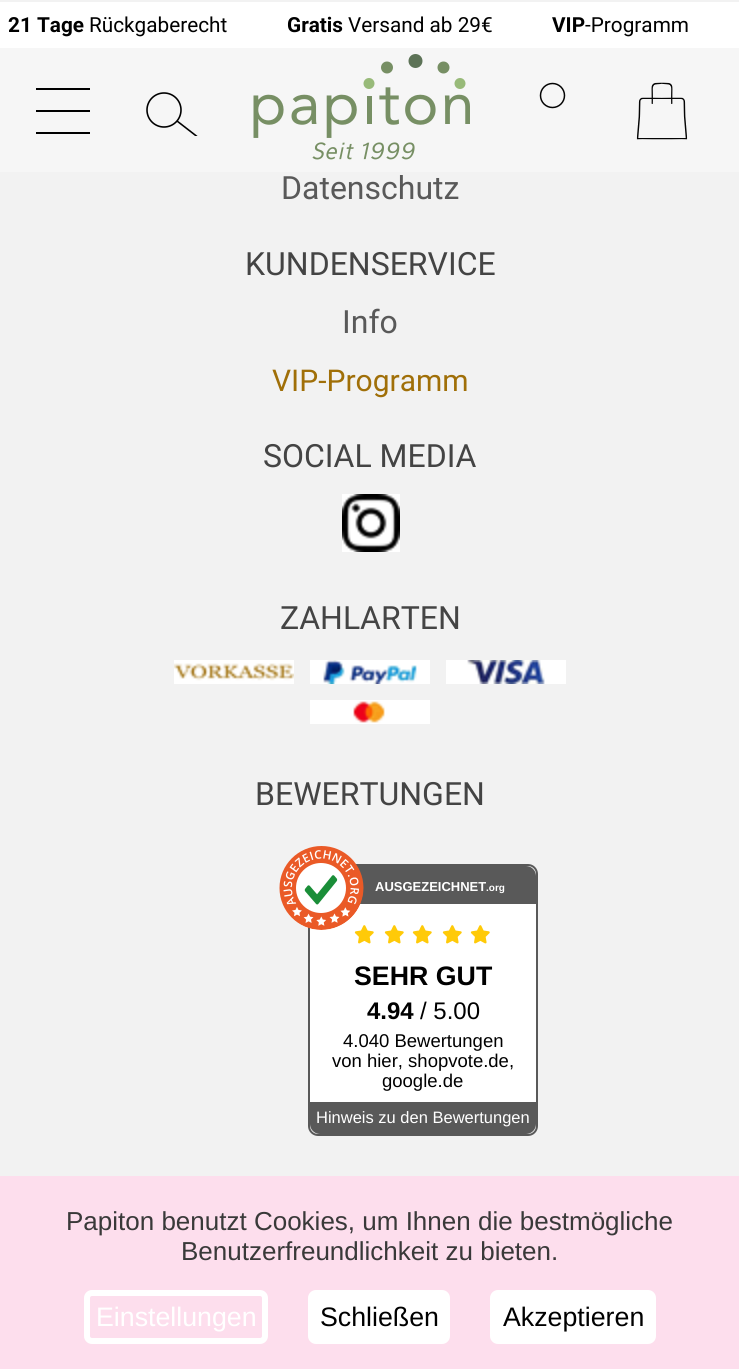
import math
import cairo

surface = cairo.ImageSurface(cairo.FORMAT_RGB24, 739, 1369)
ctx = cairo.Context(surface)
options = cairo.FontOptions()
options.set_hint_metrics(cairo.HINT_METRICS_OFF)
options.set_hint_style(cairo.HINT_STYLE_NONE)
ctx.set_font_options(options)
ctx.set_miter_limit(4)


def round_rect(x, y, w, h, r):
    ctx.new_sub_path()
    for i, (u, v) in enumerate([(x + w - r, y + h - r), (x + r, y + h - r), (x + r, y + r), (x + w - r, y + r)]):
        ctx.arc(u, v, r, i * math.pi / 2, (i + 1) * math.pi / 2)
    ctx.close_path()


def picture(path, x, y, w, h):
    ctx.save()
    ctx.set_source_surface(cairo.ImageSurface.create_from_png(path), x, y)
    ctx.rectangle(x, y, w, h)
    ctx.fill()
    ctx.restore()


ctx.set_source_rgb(0.949, 0.949, 0.949)
ctx.paint()
ctx.set_source_rgb(1, 1, 1)
ctx.rectangle(0, 2, 739, 46)
ctx.fill()
ctx.select_font_face("Roboto", cairo.FONT_SLANT_NORMAL, cairo.FONT_WEIGHT_BOLD)
ctx.set_font_size(20.75)
ctx.set_source_rgb(0, 0, 0)
ctx.move_to(8, 32)
ctx.show_text("21 Tage")
ctx.select_font_face("Roboto")
ctx.move_to(89, 32)
ctx.show_text("Rückgaberecht")
ctx.select_font_face("Roboto", cairo.FONT_SLANT_NORMAL, cairo.FONT_WEIGHT_BOLD)
ctx.move_to(287, 32)
ctx.show_text("Gratis")
ctx.select_font_face("Roboto")
ctx.move_to(348, 32)
ctx.show_text("Versand ab 29€")
ctx.select_font_face("Roboto", cairo.FONT_SLANT_NORMAL, cairo.FONT_WEIGHT_BOLD)
ctx.move_to(552, 32)
ctx.show_text("VIP")
ctx.select_font_face("Roboto")
ctx.move_to(585, 32)
ctx.show_text("-Programm")
ctx.set_source_rgb(0.961, 0.961, 0.961)
ctx.rectangle(0, 48, 739, 124)
ctx.fill()
ctx.set_source_rgb(0, 0, 0)
ctx.rectangle(36, 88, 54, 2)
ctx.fill()
ctx.rectangle(36, 110, 54, 2)
ctx.fill()
ctx.rectangle(36, 132, 54, 2)
ctx.fill()
ctx.arc(164, 110, 17, 0, 2 * math.pi)
ctx.set_line_width(1.6)
ctx.stroke()
ctx.save()
ctx.rectangle(146, 92, 52, 44)
ctx.clip()
ctx.new_path()
ctx.move_to(197, 136.5)
ctx.line_to(177, 121)
ctx.stroke()
ctx.restore()
picture("img1.png", 253, 54, 217, 106)
ctx.arc(552.5, 95.5, 12, 0, 2 * math.pi)
ctx.set_source_rgb(0.02, 0.02, 0.02)
ctx.set_line_width(1.5)
ctx.stroke()
picture("img2.png", 636, 82, 52, 58)
ctx.set_font_size(32)
ctx.set_source_rgb(0.349, 0.349, 0.349)
ctx.move_to(281, 199)
ctx.show_text("Datenschutz")
ctx.set_source_rgb(0.267, 0.267, 0.267)
ctx.move_to(245, 275)
ctx.show_text("KUNDENSERVICE")
ctx.set_source_rgb(0.349, 0.349, 0.349)
ctx.move_to(342, 333)
ctx.show_text("Info")
ctx.set_font_size(30)
ctx.set_source_rgb(0.627, 0.435, 0.035)
ctx.move_to(272, 391)
ctx.show_text("VIP-Programm")
ctx.set_font_size(32)
ctx.set_source_rgb(0.267, 0.267, 0.267)
ctx.move_to(263, 467)
ctx.show_text("SOCIAL MEDIA")
picture("img3.png", 342, 494, 58, 58)
ctx.move_to(280, 629)
ctx.show_text("ZAHLARTEN")
picture("img4.png", 174, 660, 120, 24)
picture("img5.png", 310, 660, 120, 24)
picture("img6.png", 446, 660, 120, 24)
picture("img7.png", 310, 700, 120, 24)
ctx.move_to(255, 805)
ctx.show_text("BEWERTUNGEN")
round_rect(309, 865, 228, 270, 9)
ctx.set_source_rgb(0.349, 0.349, 0.349)
ctx.set_line_width(2)
ctx.stroke()
ctx.new_path()
ctx.move_to(320, 866)
ctx.line_to(526, 866)
ctx.curve_to(531.5, 866, 536, 870.5, 536, 876)
ctx.line_to(536, 904)
ctx.line_to(310, 904)
ctx.line_to(310, 876)
ctx.curve_to(310, 870.5, 314.5, 866, 320, 866)
ctx.close_path()
ctx.fill()
ctx.set_source_rgb(1, 1, 1)
ctx.rectangle(310, 904, 226, 198)
ctx.fill()
picture("img9.png", 354, 925, 20, 19)
picture("img8.png", 279, 846, 85, 84)
ctx.select_font_face("Liberation Sans", cairo.FONT_SLANT_NORMAL, cairo.FONT_WEIGHT_BOLD)
ctx.set_font_size(13)
ctx.move_to(375, 891)
ctx.show_text("AUSGEZEICHNET")
ctx.set_font_size(10)
ctx.move_to(486, 891)
ctx.show_text(".org")
picture("img9.png", 384, 925, 20, 19)
picture("img9.png", 412, 925, 20, 19)
picture("img9.png", 442, 925, 20, 19)
picture("img9.png", 470, 925, 20, 19)
ctx.set_font_size(26.75)
ctx.set_source_rgb(0, 0, 0)
ctx.move_to(354, 985)
ctx.show_text("SEHR GUT")
ctx.set_font_size(24)
ctx.move_to(367, 1019)
ctx.show_text("4.94")
ctx.select_font_face("Liberation Sans")
ctx.move_to(420, 1019)
ctx.show_text("/ 5.00")
ctx.set_font_size(18.5)
ctx.move_to(343, 1047)
ctx.show_text("4.040 Bewertungen")
ctx.move_to(332, 1067)
ctx.show_text("von hier, shopvote.de,")
ctx.move_to(382, 1087)
ctx.show_text("google.de")
ctx.set_source_rgb(0.349, 0.349, 0.349)
ctx.new_path()
ctx.move_to(310, 1102)
ctx.line_to(536, 1102)
ctx.line_to(536, 1124)
ctx.curve_to(536, 1129.5, 531.5, 1134, 526, 1134)
ctx.line_to(320, 1134)
ctx.curve_to(314.5, 1134, 310, 1129.5, 310, 1124)
ctx.close_path()
ctx.fill()
ctx.set_font_size(16.5)
ctx.set_source_rgb(1, 1, 1)
ctx.move_to(316, 1123)
ctx.show_text("Hinweis zu den Bewertungen")
ctx.set_source_rgb(0.992, 0.871, 0.929)
ctx.rectangle(0, 1176, 739, 193)
ctx.fill()
ctx.set_font_size(26)
ctx.set_source_rgb(0.224, 0.224, 0.224)
ctx.move_to(66, 1230)
ctx.show_text("Papiton benutzt Cookies, um Ihnen die bestmögliche")
ctx.move_to(181, 1260)
ctx.show_text("Benutzerfreundlichkeit zu bieten.")
round_rect(87, 1293, 178, 48, 5)
ctx.set_source_rgb(1, 1, 1)
ctx.set_line_width(6)
ctx.stroke()
ctx.set_font_size(26.75)
ctx.move_to(96, 1326)
ctx.show_text("Einstellungen")
round_rect(311, 1293, 136, 48, 5)
ctx.fill_preserve()
ctx.stroke()
ctx.set_source_rgb(0, 0, 0)
ctx.move_to(320, 1326)
ctx.show_text("Schließen")
ctx.set_source_rgb(1, 1, 1)
round_rect(493, 1293, 160, 48, 5)
ctx.fill_preserve()
ctx.stroke()
ctx.set_source_rgb(0, 0, 0)
ctx.move_to(503, 1326)
ctx.show_text("Akzeptieren")
surface.write_to_png("page.png")
